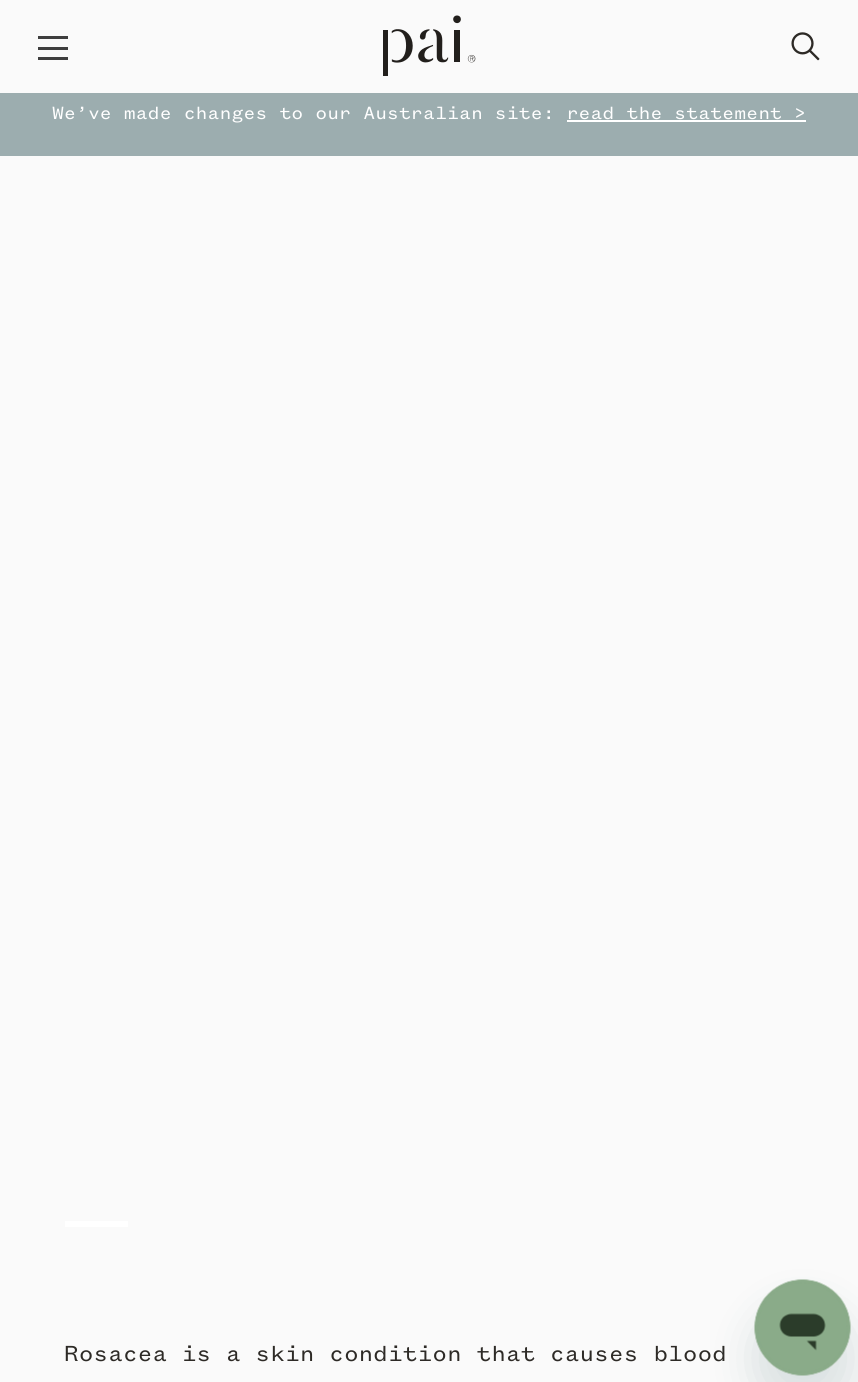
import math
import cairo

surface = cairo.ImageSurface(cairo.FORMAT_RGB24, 858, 1382)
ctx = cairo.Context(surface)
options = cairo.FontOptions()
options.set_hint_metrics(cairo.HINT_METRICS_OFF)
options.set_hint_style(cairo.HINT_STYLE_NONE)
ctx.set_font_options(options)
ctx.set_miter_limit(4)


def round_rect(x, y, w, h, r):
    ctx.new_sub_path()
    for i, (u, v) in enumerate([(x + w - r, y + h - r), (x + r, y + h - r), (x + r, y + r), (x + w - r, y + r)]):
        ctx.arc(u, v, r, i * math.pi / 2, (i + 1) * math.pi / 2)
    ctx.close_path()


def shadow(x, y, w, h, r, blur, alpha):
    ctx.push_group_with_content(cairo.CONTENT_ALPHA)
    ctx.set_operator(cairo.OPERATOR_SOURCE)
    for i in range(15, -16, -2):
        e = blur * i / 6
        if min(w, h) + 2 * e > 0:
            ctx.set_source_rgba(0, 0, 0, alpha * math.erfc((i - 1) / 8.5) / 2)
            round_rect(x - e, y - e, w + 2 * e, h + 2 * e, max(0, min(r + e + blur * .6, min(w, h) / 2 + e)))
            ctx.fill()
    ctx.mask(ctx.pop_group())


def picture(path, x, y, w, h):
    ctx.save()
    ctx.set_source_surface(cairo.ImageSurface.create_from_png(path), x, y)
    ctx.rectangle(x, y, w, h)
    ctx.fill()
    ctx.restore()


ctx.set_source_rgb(0.98, 0.98, 0.98)
ctx.paint()
ctx.set_source_rgb(0.243, 0.243, 0.243)
ctx.rectangle(38, 36, 30, 3)
ctx.fill()
ctx.rectangle(38, 47, 30, 3)
ctx.fill()
ctx.rectangle(38, 57, 30, 3)
ctx.fill()
picture("img1.png", 383, 15, 93, 61)
picture("img2.png", 791, 32, 29, 29)
ctx.set_source_rgb(0.612, 0.678, 0.686)
ctx.rectangle(0, 93, 858, 63)
ctx.fill()
ctx.select_font_face("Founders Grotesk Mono")
ctx.set_font_size(19.5)
ctx.set_source_rgb(1, 1, 1)
ctx.move_to(52, 119)
ctx.show_text("We’ve made changes to our Australian site: read the statement >")
ctx.rectangle(567, 120, 239, 2)
ctx.fill()
ctx.rectangle(65, 1221, 63, 6)
ctx.fill()
ctx.set_font_size(24)
ctx.set_source_rgb(0.176, 0.165, 0.149)
ctx.move_to(64, 1361)
ctx.show_text("Rosacea is a skin condition that causes blood")
ctx.set_source_rgb(0.09, 0.286, 0.302)
shadow(755, 1310, 96, 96, 48, 22.5, 0.15)
picture("img3.png", 754, 1279, 97, 97)
surface.write_to_png("page.png")
